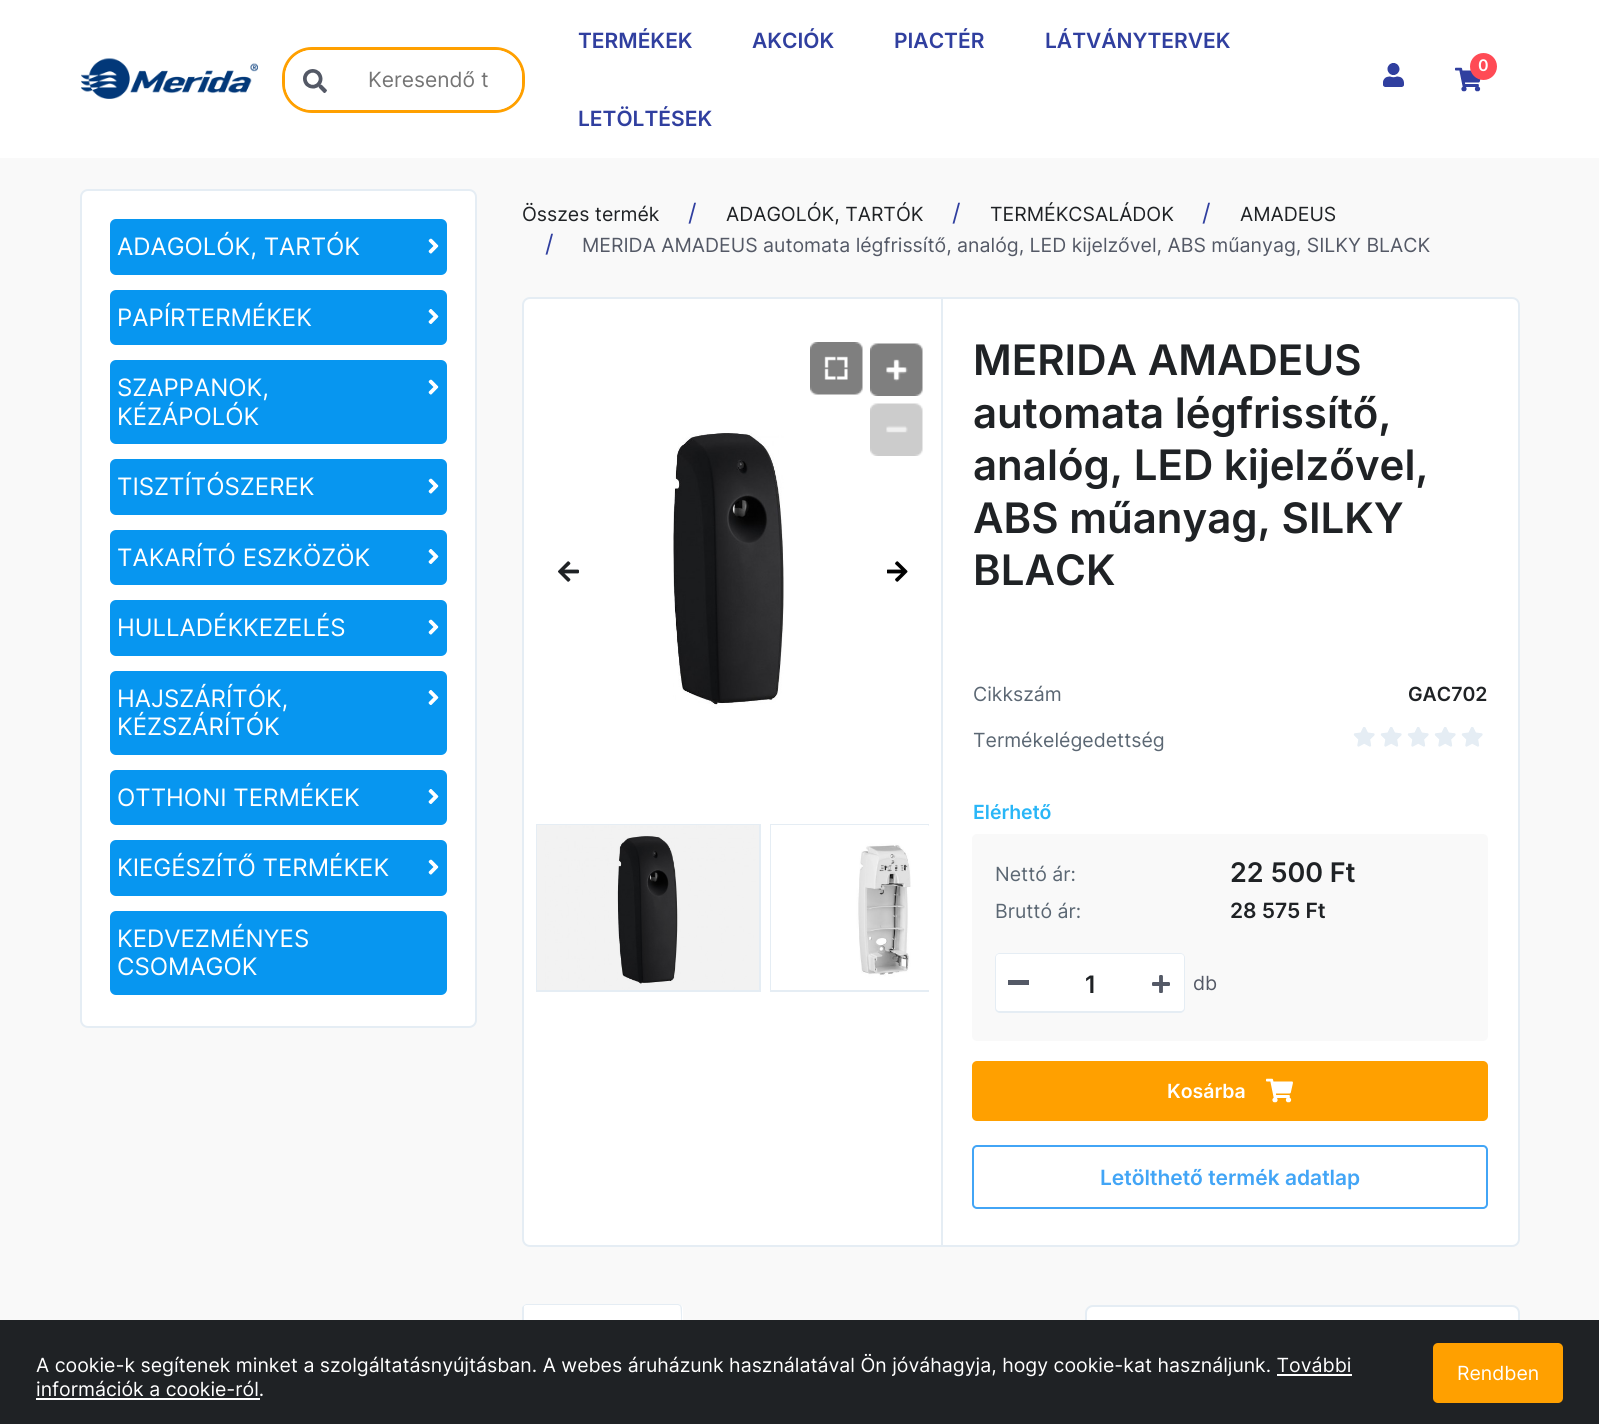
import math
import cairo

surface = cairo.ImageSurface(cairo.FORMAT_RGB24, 1599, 1424)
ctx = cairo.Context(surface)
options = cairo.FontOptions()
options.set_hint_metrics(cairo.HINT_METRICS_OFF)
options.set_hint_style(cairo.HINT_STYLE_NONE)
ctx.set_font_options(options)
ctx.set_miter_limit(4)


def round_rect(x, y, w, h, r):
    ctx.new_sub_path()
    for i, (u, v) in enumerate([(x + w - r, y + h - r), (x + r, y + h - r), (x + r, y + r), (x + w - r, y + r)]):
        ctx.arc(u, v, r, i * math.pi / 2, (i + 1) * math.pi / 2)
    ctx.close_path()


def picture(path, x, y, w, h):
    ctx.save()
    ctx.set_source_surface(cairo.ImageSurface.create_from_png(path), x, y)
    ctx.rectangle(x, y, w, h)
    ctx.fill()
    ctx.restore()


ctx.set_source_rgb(0.973, 0.973, 0.973)
ctx.paint()
ctx.set_source_rgb(1, 1, 1)
ctx.rectangle(0, 0, 1599, 158)
ctx.fill()
picture("img1.png", 81, 58, 177, 41)
round_rect(283.5, 48.5, 240, 63, 28.5)
ctx.set_source_rgb(1, 0.627, 0)
ctx.set_line_width(3)
ctx.stroke()
ctx.set_source_rgb(1, 1, 1)
ctx.new_path()
ctx.move_to(312, 50)
ctx.line_to(345, 50)
ctx.line_to(345, 110)
ctx.line_to(312, 110)
ctx.curve_to(297, 110, 285, 98, 285, 83)
ctx.line_to(285, 77)
ctx.curve_to(285, 62, 297, 50, 312, 50)
ctx.close_path()
ctx.fill()
picture("img2.png", 303, 69, 24, 24)
ctx.new_path()
ctx.move_to(345, 50)
ctx.line_to(495, 50)
ctx.curve_to(510, 50, 522, 62, 522, 77)
ctx.line_to(522, 83)
ctx.curve_to(522, 98, 510, 110, 495, 110)
ctx.line_to(345, 110)
ctx.close_path()
ctx.fill()
ctx.select_font_face("Inter")
ctx.set_font_size(21)
ctx.set_source_rgb(0.459, 0.459, 0.459)
ctx.move_to(368, 87)
ctx.show_text("Keresendő t")
ctx.select_font_face("Inter SemiBold")
ctx.set_source_rgb(0.188, 0.247, 0.624)
ctx.move_to(578, 48)
ctx.show_text("TERMÉKEK")
ctx.move_to(752, 48)
ctx.show_text("AKCIÓK")
ctx.move_to(894, 48)
ctx.show_text("PIACTÉR")
ctx.move_to(1045, 48)
ctx.show_text("LÁTVÁNYTERVEK")
ctx.move_to(578, 126)
ctx.show_text("LETÖLTÉSEK")
picture("img3.png", 1383, 63, 21, 24)
picture("img4.png", 1455, 67, 26, 25)
ctx.set_source_rgb(1, 0.294, 0.333)
ctx.arc(1483.5, 66.5, 13.5, 0, 2 * math.pi)
ctx.fill()
ctx.set_font_size(16)
ctx.set_source_rgb(1, 1, 1)
ctx.move_to(1478, 71)
ctx.show_text("0")
round_rect(81, 190, 395, 837, 7)
ctx.fill_preserve()
ctx.set_source_rgb(0.898, 0.929, 0.957)
ctx.set_line_width(2)
ctx.stroke()
ctx.set_source_rgb(0.031, 0.588, 0.941)
round_rect(110, 219, 337, 56, 6)
ctx.fill()
ctx.select_font_face("Inter")
ctx.set_font_size(24)
ctx.set_source_rgb(1, 1, 1)
ctx.move_to(117, 255)
ctx.show_text("ADAGOLÓK, TARTÓK")
picture("img5.png", 428, 238, 11, 16)
ctx.set_source_rgb(0.031, 0.588, 0.941)
round_rect(110, 290, 337, 55, 6)
ctx.fill()
ctx.set_source_rgb(1, 1, 1)
ctx.move_to(117, 326)
ctx.show_text("PAPÍRTERMÉKEK")
picture("img6.png", 428, 309, 11, 15)
ctx.set_source_rgb(0.031, 0.588, 0.941)
round_rect(110, 360, 337, 84, 6)
ctx.fill()
ctx.set_source_rgb(1, 1, 1)
ctx.move_to(117, 396)
ctx.show_text("SZAPPANOK,")
ctx.move_to(117, 425)
ctx.show_text("KÉZÁPOLÓK")
picture("img5.png", 428, 379, 11, 16)
ctx.set_source_rgb(0.031, 0.588, 0.941)
round_rect(110, 459, 337, 56, 6)
ctx.fill()
ctx.set_source_rgb(1, 1, 1)
ctx.move_to(117, 495)
ctx.show_text("TISZTÍTÓSZEREK")
picture("img5.png", 428, 478, 11, 16)
ctx.set_source_rgb(0.031, 0.588, 0.941)
round_rect(110, 530, 337, 55, 6)
ctx.fill()
ctx.set_source_rgb(1, 1, 1)
ctx.move_to(117, 566)
ctx.show_text("TAKARÍTÓ ESZKÖZÖK")
picture("img6.png", 428, 549, 11, 15)
ctx.set_source_rgb(0.031, 0.588, 0.941)
round_rect(110, 600, 337, 56, 6)
ctx.fill()
ctx.set_source_rgb(1, 1, 1)
ctx.move_to(117, 636)
ctx.show_text("HULLADÉKKEZELÉS")
picture("img5.png", 428, 619, 11, 16)
ctx.set_source_rgb(0.031, 0.588, 0.941)
round_rect(110, 671, 337, 84, 6)
ctx.fill()
ctx.set_source_rgb(1, 1, 1)
ctx.move_to(117, 707)
ctx.show_text("HAJSZÁRÍTÓK,")
ctx.move_to(117, 735)
ctx.show_text("KÉZSZÁRÍTÓK")
picture("img6.png", 428, 690, 11, 15)
ctx.set_source_rgb(0.031, 0.588, 0.941)
round_rect(110, 770, 337, 55, 6)
ctx.fill()
ctx.set_source_rgb(1, 1, 1)
ctx.move_to(117, 806)
ctx.show_text("OTTHONI TERMÉKEK")
picture("img6.png", 428, 789, 11, 15)
ctx.set_source_rgb(0.031, 0.588, 0.941)
round_rect(110, 840, 337, 56, 6)
ctx.fill()
ctx.set_source_rgb(1, 1, 1)
ctx.move_to(117, 876)
ctx.show_text("KIEGÉSZÍTŐ TERMÉKEK")
picture("img5.png", 428, 859, 11, 16)
ctx.set_source_rgb(0.031, 0.588, 0.941)
round_rect(110, 911, 337, 84, 6)
ctx.fill()
ctx.set_source_rgb(1, 1, 1)
ctx.move_to(117, 947)
ctx.show_text("KEDVEZMÉNYES")
ctx.move_to(117, 975)
ctx.show_text("CSOMAGOK")
ctx.set_font_size(19.5)
ctx.set_source_rgb(0.122, 0.133, 0.145)
ctx.move_to(522, 221)
ctx.show_text("Összes termék")
ctx.set_font_size(24)
ctx.set_source_rgb(0.188, 0.247, 0.624)
ctx.move_to(688, 221)
ctx.show_text("/")
ctx.set_font_size(19.5)
ctx.set_source_rgb(0.122, 0.133, 0.145)
ctx.move_to(726, 221)
ctx.show_text("ADAGOLÓK, TARTÓK")
ctx.set_font_size(24)
ctx.set_source_rgb(0.188, 0.247, 0.624)
ctx.move_to(952, 221)
ctx.show_text("/")
ctx.set_font_size(19.5)
ctx.set_source_rgb(0.122, 0.133, 0.145)
ctx.move_to(990, 221)
ctx.show_text("TERMÉKCSALÁDOK")
ctx.set_font_size(24)
ctx.set_source_rgb(0.188, 0.247, 0.624)
ctx.move_to(1202, 221)
ctx.show_text("/")
ctx.set_font_size(19.5)
ctx.set_source_rgb(0.122, 0.133, 0.145)
ctx.move_to(1240, 221)
ctx.show_text("AMADEUS")
ctx.set_font_size(24)
ctx.set_source_rgb(0.188, 0.247, 0.624)
ctx.move_to(545, 252)
ctx.show_text("/")
ctx.set_font_size(19.5)
ctx.set_source_rgb(0.329, 0.349, 0.4)
ctx.move_to(582, 252)
ctx.show_text("MERIDA AMADEUS automata légfrissítő, analóg, LED kijelzővel, ABS műanyag, SILKY BLACK")
ctx.set_source_rgb(1, 1, 1)
round_rect(523, 298, 996, 948, 7)
ctx.fill_preserve()
ctx.set_source_rgb(0.898, 0.929, 0.957)
ctx.stroke()
picture("img7.png", 810, 342, 53, 53)
picture("img8.png", 870, 343, 53, 53)
picture("img9.png", 870, 403, 53, 53)
picture("img10.png", 558, 561, 21, 21)
picture("img11.png", 673, 433, 111, 275)
picture("img12.png", 887, 561, 21, 21)
ctx.rectangle(537, 825, 223, 166)
ctx.stroke()
picture("img13.png", 537, 825, 222, 165)
ctx.save()
ctx.rectangle(536, 824, 393, 168)
ctx.clip()
ctx.rectangle(771, 825, 223, 166)
ctx.stroke()
ctx.restore()
picture("img14.png", 771, 825, 158, 165)
ctx.rectangle(941, 299, 2, 946)
ctx.fill()
ctx.select_font_face("Inter SemiBold")
ctx.set_font_size(42)
ctx.set_source_rgb(0.122, 0.133, 0.145)
ctx.move_to(973, 375)
ctx.show_text("MERIDA AMADEUS")
ctx.move_to(973, 428)
ctx.show_text("automata légfrissítő,")
ctx.move_to(973, 480)
ctx.show_text("analóg, LED kijelzővel,")
ctx.move_to(973, 533)
ctx.show_text("ABS műanyag, SILKY")
ctx.move_to(973, 585)
ctx.show_text("BLACK")
ctx.select_font_face("Inter")
ctx.set_font_size(19.5)
ctx.set_source_rgb(0.357, 0.404, 0.451)
ctx.move_to(973, 701)
ctx.show_text("Cikkszám")
ctx.select_font_face("Inter SemiBold")
ctx.set_source_rgb(0.122, 0.133, 0.145)
ctx.move_to(1408, 701)
ctx.show_text("GAC702")
ctx.select_font_face("Inter")
ctx.set_source_rgb(0.357, 0.404, 0.451)
ctx.move_to(973, 747)
ctx.show_text("Termékelégedettség")
picture("img15.png", 1353, 727, 22, 20)
picture("img15.png", 1380, 727, 22, 20)
picture("img15.png", 1407, 727, 22, 20)
picture("img15.png", 1434, 727, 22, 20)
picture("img15.png", 1461, 727, 22, 20)
ctx.select_font_face("Inter SemiBold")
ctx.set_source_rgb(0.161, 0.714, 0.965)
ctx.move_to(973, 819)
ctx.show_text("Elérhető")
ctx.set_source_rgb(0.973, 0.973, 0.973)
round_rect(972, 834, 516, 207, 5)
ctx.fill()
ctx.select_font_face("Inter")
ctx.set_source_rgb(0.357, 0.404, 0.451)
ctx.move_to(995, 881)
ctx.show_text("Nettó ár:")
ctx.select_font_face("Inter SemiBold")
ctx.set_font_size(27)
ctx.set_source_rgb(0.122, 0.133, 0.145)
ctx.move_to(1230, 882)
ctx.show_text("22 500 Ft")
ctx.select_font_face("Inter")
ctx.set_font_size(19.5)
ctx.set_source_rgb(0.357, 0.404, 0.451)
ctx.move_to(995, 918)
ctx.show_text("Bruttó ár:")
ctx.select_font_face("Inter SemiBold")
ctx.set_font_size(21)
ctx.set_source_rgb(0.122, 0.133, 0.145)
ctx.move_to(1230, 918)
ctx.show_text("28 575 Ft")
round_rect(996, 954, 188, 58, 4)
ctx.set_source_rgb(0.898, 0.929, 0.957)
ctx.stroke()
ctx.set_source_rgb(1, 1, 1)
ctx.new_path()
ctx.move_to(999, 954)
ctx.line_to(1041, 954)
ctx.line_to(1041, 1011)
ctx.line_to(999, 1011)
ctx.curve_to(997.5, 1011, 996, 1009.5, 996, 1008)
ctx.line_to(996, 957)
ctx.curve_to(996, 955.5, 997.5, 954, 999, 954)
ctx.close_path()
ctx.fill()
ctx.set_source_rgb(0.329, 0.349, 0.4)
ctx.rectangle(1008, 980, 21, 5)
ctx.fill()
ctx.set_source_rgb(1, 1, 1)
ctx.rectangle(1041, 954, 98, 57)
ctx.fill()
ctx.set_font_size(24)
ctx.set_source_rgb(0.122, 0.133, 0.145)
ctx.move_to(1085, 993)
ctx.show_text("1")
ctx.set_source_rgb(1, 1, 1)
ctx.new_path()
ctx.move_to(1139, 954)
ctx.line_to(1181, 954)
ctx.curve_to(1182.5, 954, 1184, 955.5, 1184, 957)
ctx.line_to(1184, 1008)
ctx.curve_to(1184, 1009.5, 1182.5, 1011, 1181, 1011)
ctx.line_to(1139, 1011)
ctx.close_path()
ctx.fill()
picture("img16.png", 1152, 975, 18, 18)
ctx.select_font_face("Inter")
ctx.set_font_size(19.5)
ctx.set_source_rgb(0.329, 0.349, 0.4)
ctx.move_to(1193, 990)
ctx.show_text("db")
ctx.set_source_rgb(1, 0.627, 0)
round_rect(972, 1061, 516, 60, 5)
ctx.fill()
ctx.select_font_face("Inter SemiBold")
ctx.set_source_rgb(1, 1, 1)
ctx.move_to(1167, 1098)
ctx.show_text("Kosárba")
picture("img17.png", 1266, 1078, 27, 25)
round_rect(973, 1146, 514, 62, 4)
ctx.set_source_rgb(0.259, 0.647, 0.961)
ctx.stroke()
ctx.set_font_size(21)
ctx.move_to(1100, 1185)
ctx.show_text("Letölthető termék adatlap")
ctx.set_source_rgb(1, 1, 1)
ctx.new_path()
ctx.move_to(527, 1304)
ctx.line_to(678, 1304)
ctx.curve_to(681, 1304, 683, 1306, 683, 1309)
ctx.line_to(683, 1367)
ctx.line_to(522, 1367)
ctx.line_to(522, 1309)
ctx.curve_to(522, 1306, 524, 1304, 527, 1304)
ctx.close_path()
ctx.fill()
ctx.set_source_rgb(0.898, 0.929, 0.957)
ctx.new_path()
ctx.move_to(526, 1304)
ctx.line_to(524, 1305)
ctx.line_to(524, 1306)
ctx.line_to(526, 1305)
ctx.line_to(678, 1305)
ctx.line_to(680, 1306)
ctx.line_to(681, 1305)
ctx.line_to(678, 1304)
ctx.close_path()
ctx.fill()
ctx.new_path()
ctx.move_to(682, 1366)
ctx.line_to(682, 1308)
ctx.line_to(681, 1305)
ctx.line_to(680, 1306)
ctx.curve_to(682, 1308, 681, 1358, 681, 1365)
ctx.close_path()
ctx.fill()
ctx.new_path()
ctx.move_to(522, 1308)
ctx.line_to(522, 1366)
ctx.line_to(524, 1364)
ctx.line_to(524, 1308)
ctx.line_to(524, 1306)
ctx.line_to(524, 1305)
ctx.curve_to(523, 1306, 522, 1307, 522, 1308)
ctx.close_path()
ctx.fill()
ctx.set_source_rgb(1, 1, 1)
round_rect(1086, 1306, 433, 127, 7)
ctx.fill_preserve()
ctx.set_source_rgb(0.898, 0.929, 0.957)
ctx.stroke()
ctx.set_source_rgb(0.122, 0.133, 0.145)
ctx.rectangle(0, 1320, 1599, 104)
ctx.fill()
ctx.select_font_face("Inter")
ctx.set_font_size(19.5)
ctx.set_source_rgb(1, 1, 1)
ctx.move_to(36, 1372)
ctx.show_text("A cookie-k segítenek minket a szolgáltatásnyújtásban. A webes áruházunk használatával Ön jóváhagyja, hogy cookie-kat használjunk. További")
ctx.move_to(36, 1396)
ctx.show_text("információk a cookie-ról.")
ctx.rectangle(1277, 1374, 75, 2)
ctx.fill()
ctx.rectangle(36, 1398, 224, 2)
ctx.fill()
ctx.set_source_rgb(1, 0.627, 0)
round_rect(1433, 1343, 130, 60, 5)
ctx.fill()
ctx.set_source_rgb(1, 1, 1)
ctx.move_to(1457, 1380)
ctx.show_text("Rendben")
surface.write_to_png("page.png")
